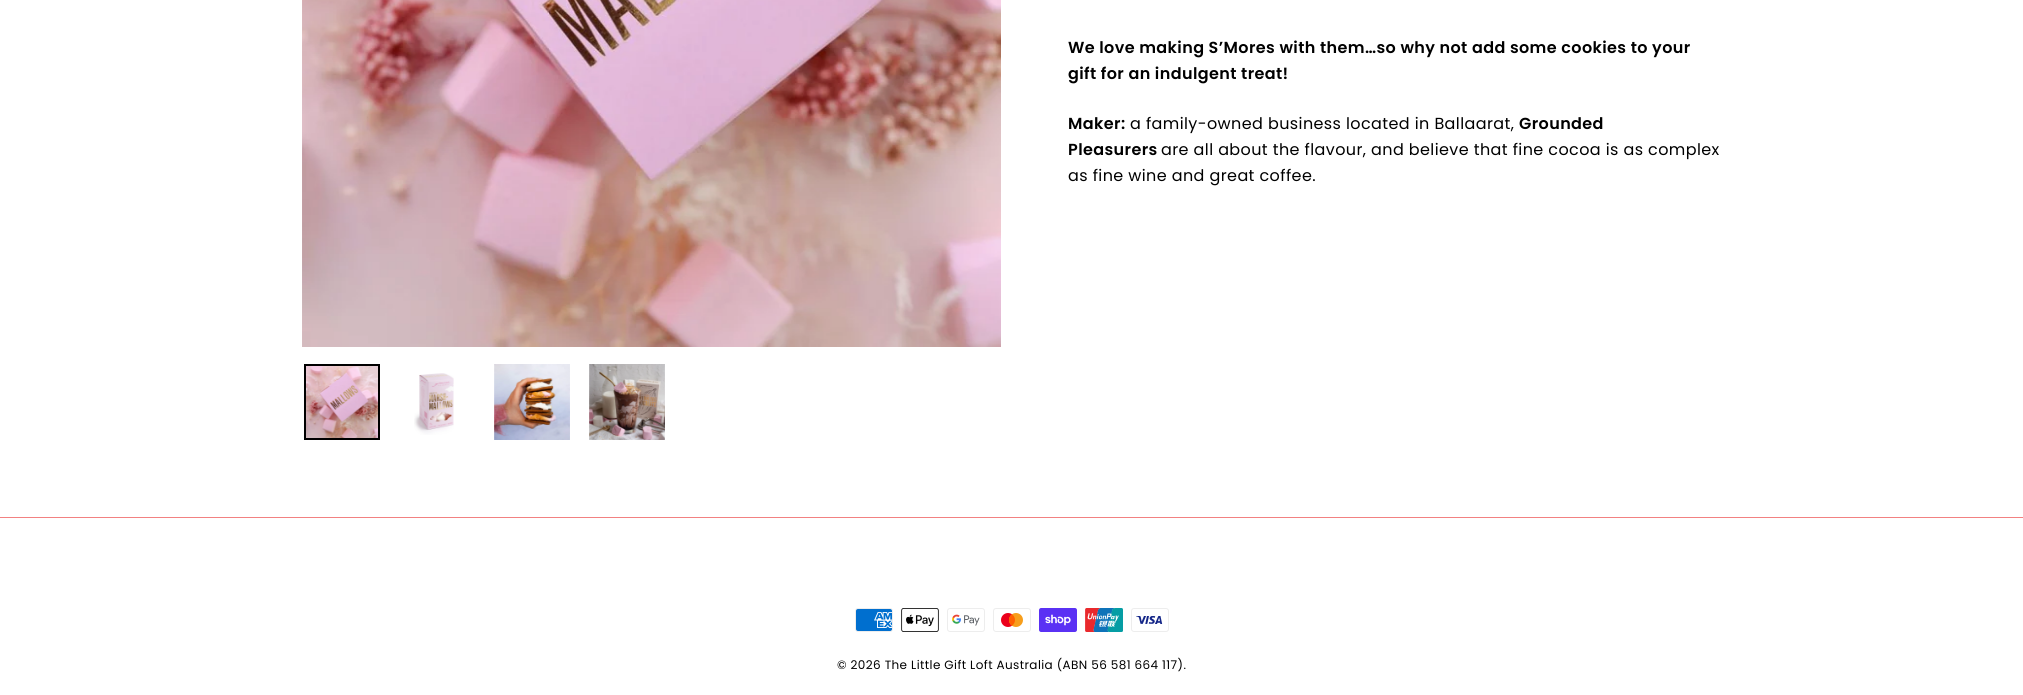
import math
import cairo

surface = cairo.ImageSurface(cairo.FORMAT_RGB24, 2023, 695)
ctx = cairo.Context(surface)
options = cairo.FontOptions()
options.set_hint_metrics(cairo.HINT_METRICS_OFF)
options.set_hint_style(cairo.HINT_STYLE_NONE)
ctx.set_font_options(options)
ctx.set_miter_limit(4)


def spaced_text(x, y, s, letter, word):
    ctx.move_to(x, y)
    for ch in s:
        ctx.show_text(ch)
        ctx.rel_move_to(letter + word * (ch == ' '), 0)


def picture(path, x, y, w, h):
    ctx.save()
    ctx.set_source_surface(cairo.ImageSurface.create_from_png(path), x, y)
    ctx.rectangle(x, y, w, h)
    ctx.fill()
    ctx.restore()


ctx.set_source_rgb(1, 1, 1)
ctx.paint()
picture("img1.png", 302, 0, 699, 347)
picture("img2.png", 306, 366, 72, 72)
ctx.rectangle(305, 365, 74, 74)
ctx.set_source_rgb(0, 0, 0)
ctx.stroke()
picture("img3.png", 414, 373, 40, 62)
picture("img4.png", 494, 364, 76, 76)
picture("img5.png", 589, 364, 76, 76)
ctx.select_font_face("Poppins SemiBold")
ctx.set_font_size(16)
spaced_text(1068, 53, "We love making S’Mores with them…so why not add some cookies to your", 0.4, 0)
spaced_text(1068, 79, "gift for an indulgent treat!", 0.4, 0)
spaced_text(1068, 129, "Maker:", 0.4, 0)
ctx.select_font_face("Poppins")
spaced_text(1130, 129, "a family-owned business located in Ballaarat,", 0.4, 0)
ctx.select_font_face("Poppins SemiBold")
spaced_text(1519, 129, "Grounded", 0.4, 0)
spaced_text(1068, 155, "Pleasurers", 0.4, 0)
ctx.select_font_face("Poppins")
spaced_text(1161, 155, "are all about the flavour, and believe that fine cocoa is as complex", 0.4, 0)
spaced_text(1068, 181, "as fine wine and great coffee.", 0.4, 0)
ctx.set_source_rgb(0.949, 0.506, 0.506)
ctx.rectangle(0, 517, 2023, 1)
ctx.fill()
picture("img6.png", 855, 608, 38, 24)
picture("img7.png", 901, 608, 38, 24)
picture("img8.png", 947, 608, 38, 24)
picture("img9.png", 993, 608, 38, 24)
picture("img10.png", 1039, 608, 38, 24)
picture("img11.png", 1085, 608, 38, 24)
picture("img12.png", 1131, 608, 38, 24)
ctx.set_font_size(12)
ctx.set_source_rgb(0, 0, 0)
spaced_text(837, 669, "© 2026 The Little Gift Loft Australia (ABN 56 581 664 117).", 0.4, 0)
surface.write_to_png("page.png")
